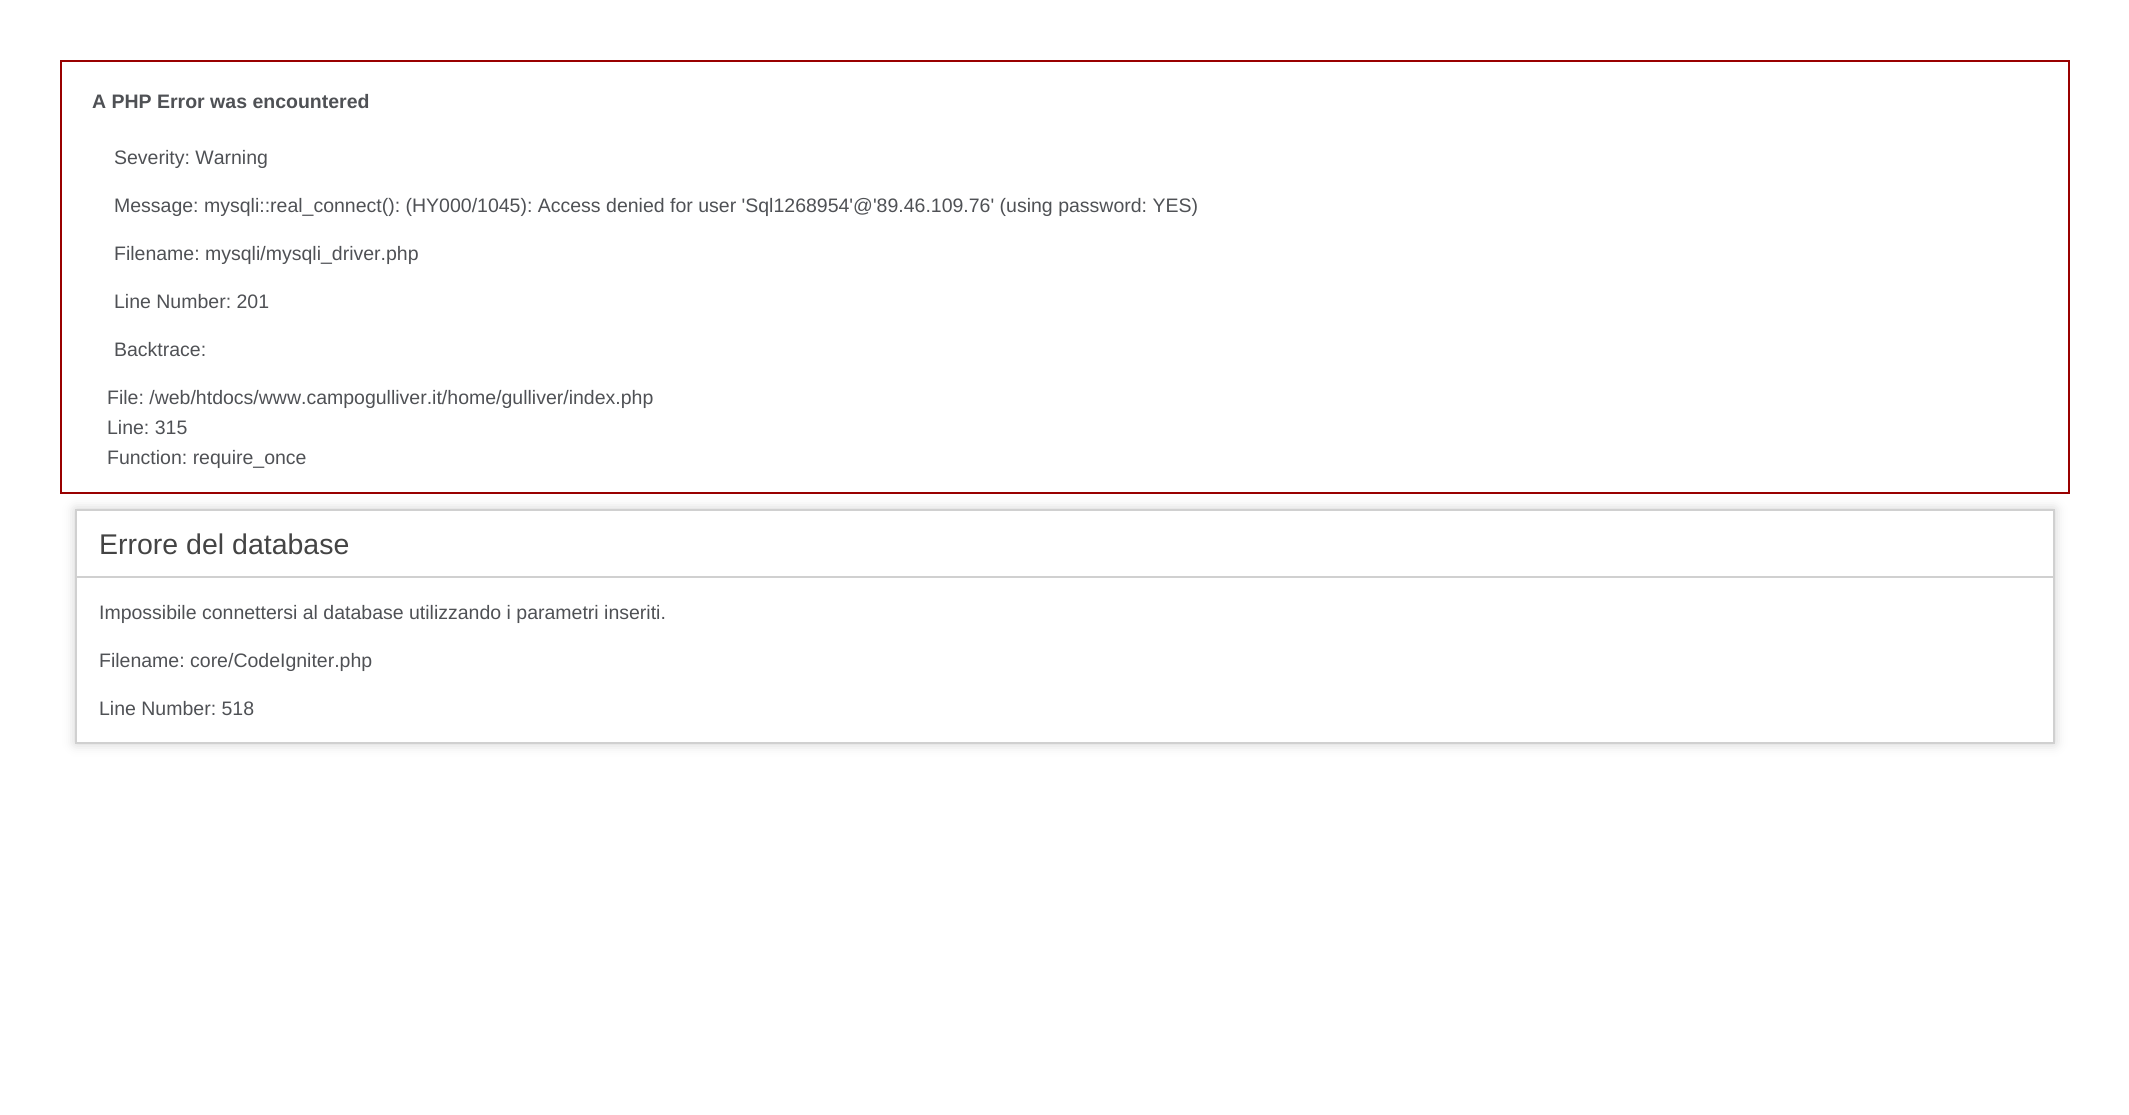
import math
import cairo

surface = cairo.ImageSurface(cairo.FORMAT_RGB24, 2129, 1115)
ctx = cairo.Context(surface)
options = cairo.FontOptions()
options.set_hint_metrics(cairo.HINT_METRICS_OFF)
options.set_hint_style(cairo.HINT_STYLE_NONE)
ctx.set_font_options(options)
ctx.set_miter_limit(4)


def round_rect(x, y, w, h, r):
    ctx.new_sub_path()
    for i, (u, v) in enumerate([(x + w - r, y + h - r), (x + r, y + h - r), (x + r, y + r), (x + w - r, y + r)]):
        ctx.arc(u, v, r, i * math.pi / 2, (i + 1) * math.pi / 2)
    ctx.close_path()


def shadow(x, y, w, h, r, blur, alpha):
    ctx.push_group_with_content(cairo.CONTENT_ALPHA)
    ctx.set_operator(cairo.OPERATOR_SOURCE)
    for i in range(15, -16, -2):
        e = blur * i / 6
        if min(w, h) + 2 * e > 0:
            ctx.set_source_rgba(0, 0, 0, alpha * math.erfc((i - 1) / 8.5) / 2)
            round_rect(x - e, y - e, w + 2 * e, h + 2 * e, max(0, min(r + e + blur * .6, min(w, h) / 2 + e)))
            ctx.fill()
    ctx.mask(ctx.pop_group())


ctx.set_source_rgb(1, 1, 1)
ctx.paint()
ctx.rectangle(61, 61, 2008, 432)
ctx.set_source_rgb(0.6, 0, 0)
ctx.stroke()
ctx.select_font_face("Liberation Sans", cairo.FONT_SLANT_NORMAL, cairo.FONT_WEIGHT_BOLD)
ctx.set_font_size(19.5)
ctx.set_source_rgb(0.31, 0.318, 0.333)
ctx.move_to(92, 108)
ctx.show_text("A PHP Error was encountered")
ctx.select_font_face("Liberation Sans")
ctx.move_to(114, 164)
ctx.show_text("Severity: Warning")
ctx.move_to(114, 212)
ctx.show_text("Message: mysqli::real_connect(): (HY000/1045): Access denied for user 'Sql1268954'@'89.46.109.76' (using password: YES)")
ctx.move_to(114, 260)
ctx.show_text("Filename: mysqli/mysqli_driver.php")
ctx.move_to(114, 308)
ctx.show_text("Line Number: 201")
ctx.move_to(114, 356)
ctx.show_text("Backtrace:")
ctx.move_to(107, 404)
ctx.show_text("File: /web/htdocs/www.campogulliver.it/home/gulliver/index.php")
ctx.move_to(107, 434)
ctx.show_text("Line: 315")
ctx.move_to(107, 464)
ctx.show_text("Function: require_once")
ctx.save()
ctx.set_fill_rule(cairo.FILL_RULE_EVEN_ODD)
ctx.new_path()
ctx.move_to(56, 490)
ctx.line_to(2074, 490)
ctx.line_to(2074, 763)
ctx.line_to(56, 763)
ctx.close_path()
ctx.move_to(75, 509)
ctx.line_to(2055, 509)
ctx.line_to(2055, 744)
ctx.line_to(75, 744)
ctx.close_path()
ctx.clip()
ctx.set_source_rgb(0.816, 0.816, 0.816)
shadow(75, 509, 1980, 235, 0, 6, 1)
ctx.restore()
ctx.rectangle(76, 510, 1978, 233)
ctx.set_source_rgb(0.816, 0.816, 0.816)
ctx.stroke()
ctx.rectangle(77, 576, 1977, 2)
ctx.fill()
ctx.set_font_size(28.5)
ctx.set_source_rgb(0.267, 0.267, 0.267)
ctx.move_to(99, 554)
ctx.show_text("Errore del database")
ctx.set_font_size(19.5)
ctx.set_source_rgb(0.31, 0.318, 0.333)
ctx.move_to(99, 619)
ctx.show_text("Impossibile connettersi al database utilizzando i parametri inseriti.")
ctx.move_to(99, 667)
ctx.show_text("Filename: core/CodeIgniter.php")
ctx.move_to(99, 715)
ctx.show_text("Line Number: 518")
surface.write_to_png("page.png")
